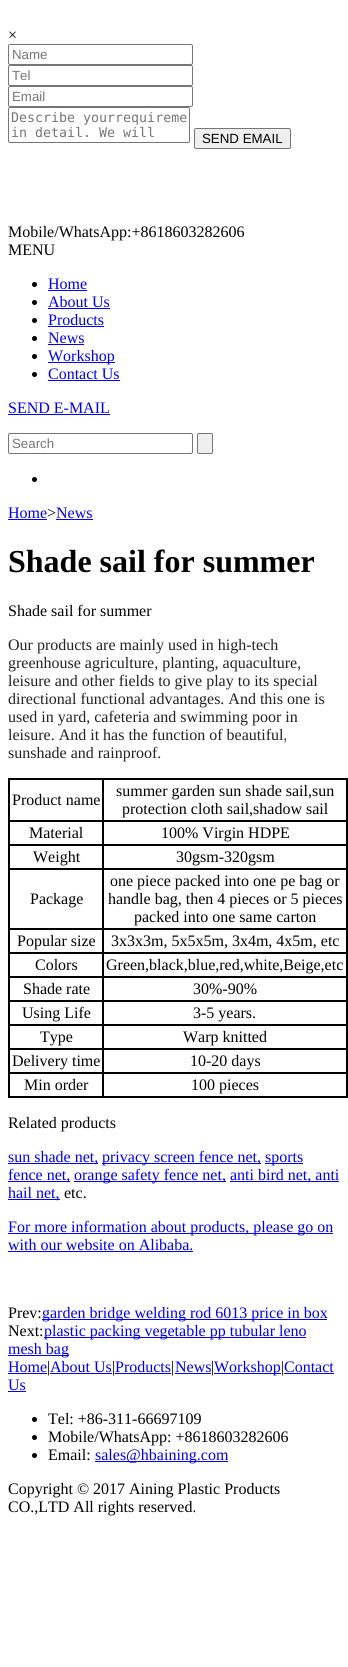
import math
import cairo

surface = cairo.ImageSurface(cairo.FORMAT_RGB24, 348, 1667)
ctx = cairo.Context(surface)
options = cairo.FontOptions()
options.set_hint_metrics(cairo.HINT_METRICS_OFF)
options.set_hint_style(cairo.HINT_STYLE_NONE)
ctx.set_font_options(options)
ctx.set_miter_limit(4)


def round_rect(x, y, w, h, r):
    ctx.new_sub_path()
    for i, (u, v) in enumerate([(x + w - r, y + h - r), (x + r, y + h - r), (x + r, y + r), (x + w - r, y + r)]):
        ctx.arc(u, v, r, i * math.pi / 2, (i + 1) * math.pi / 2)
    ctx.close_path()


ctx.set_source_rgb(1, 1, 1)
ctx.paint()
ctx.select_font_face("Liberation Serif")
ctx.set_font_size(16)
ctx.set_source_rgb(0, 0, 0)
ctx.move_to(8, 40)
ctx.show_text("×")
round_rect(8.5, 44.5, 184, 20, 1.5)
ctx.set_source_rgb(0.463, 0.463, 0.463)
ctx.set_line_width(1)
ctx.stroke()
ctx.select_font_face("Liberation Sans")
ctx.set_font_size(13.3)
ctx.set_source_rgb(0.459, 0.459, 0.459)
ctx.move_to(12, 59)
ctx.show_text("Name")
round_rect(8.5, 65.5, 184, 20, 1.5)
ctx.set_source_rgb(0.463, 0.463, 0.463)
ctx.stroke()
ctx.set_source_rgb(0.459, 0.459, 0.459)
ctx.move_to(12, 80)
ctx.show_text("Tel")
round_rect(8.5, 86.5, 184, 20, 1.5)
ctx.set_source_rgb(0.463, 0.463, 0.463)
ctx.stroke()
ctx.set_source_rgb(0.459, 0.459, 0.459)
ctx.move_to(12, 101)
ctx.show_text("Email")
round_rect(8.5, 107.5, 181, 35, 1.5)
ctx.set_source_rgb(0.463, 0.463, 0.463)
ctx.stroke()
ctx.select_font_face("DejaVu Sans Mono")
ctx.set_source_rgb(0.459, 0.459, 0.459)
ctx.move_to(11, 122)
ctx.show_text("Describe yourrequireme")
ctx.move_to(11, 137)
ctx.show_text("in detail. We will")
ctx.set_source_rgb(0.937, 0.937, 0.937)
round_rect(194.5, 128.5, 96, 20, 1.5)
ctx.fill_preserve()
ctx.set_source_rgb(0.463, 0.463, 0.463)
ctx.stroke()
ctx.select_font_face("Liberation Sans")
ctx.set_source_rgb(0, 0, 0)
ctx.move_to(202, 143)
ctx.show_text("SEND EMAIL")
ctx.select_font_face("Liberation Serif")
ctx.set_font_size(16)
ctx.move_to(8, 237)
ctx.show_text("Mobile/WhatsApp:+8618603282606")
ctx.move_to(8, 255)
ctx.show_text("MENU")
ctx.new_path()
ctx.arc(34.5, 284.5, 2.5, 0, 2 * math.pi)
ctx.fill()
ctx.set_source_rgb(0, 0, 0.933)
ctx.move_to(48, 289)
ctx.show_text("Home")
ctx.rectangle(48, 290, 39, 1)
ctx.fill()
ctx.set_source_rgb(0, 0, 0)
ctx.arc(34.5, 302.5, 2.5, 0, 2 * math.pi)
ctx.fill()
ctx.set_source_rgb(0, 0, 0.933)
ctx.move_to(48, 307)
ctx.show_text("About Us")
ctx.rectangle(48, 308, 62, 1)
ctx.fill()
ctx.set_source_rgb(0, 0, 0)
ctx.arc(34.5, 320.5, 2.5, 0, 2 * math.pi)
ctx.fill()
ctx.set_source_rgb(0, 0, 0.933)
ctx.move_to(48, 325)
ctx.show_text("Products")
ctx.rectangle(48, 326, 56, 1)
ctx.fill()
ctx.set_source_rgb(0, 0, 0)
ctx.arc(34.5, 338.5, 2.5, 0, 2 * math.pi)
ctx.fill()
ctx.set_source_rgb(0, 0, 0.933)
ctx.move_to(48, 343)
ctx.show_text("News")
ctx.rectangle(48, 344, 36, 1)
ctx.fill()
ctx.set_source_rgb(0, 0, 0)
ctx.arc(34.5, 356.5, 2.5, 0, 2 * math.pi)
ctx.fill()
ctx.set_source_rgb(0, 0, 0.933)
ctx.rectangle(48, 362, 67, 1)
ctx.fill()
ctx.move_to(48, 361)
ctx.show_text("Workshop")
ctx.set_source_rgb(0, 0, 0)
ctx.new_path()
ctx.arc(34.5, 374.5, 2.5, 0, 2 * math.pi)
ctx.fill()
ctx.set_source_rgb(0, 0, 0.933)
ctx.move_to(48, 379)
ctx.show_text("Contact Us")
ctx.rectangle(48, 380, 72, 1)
ctx.fill()
ctx.move_to(8, 413)
ctx.show_text("SEND E-MAIL")
ctx.rectangle(8, 414, 102, 1)
ctx.fill()
round_rect(8.5, 433.5, 184, 20, 1.5)
ctx.set_source_rgb(0.463, 0.463, 0.463)
ctx.stroke()
ctx.select_font_face("Liberation Sans")
ctx.set_font_size(13.3)
ctx.set_source_rgb(0.459, 0.459, 0.459)
ctx.move_to(12, 448)
ctx.show_text("Search")
ctx.set_source_rgb(0.937, 0.937, 0.937)
round_rect(197.5, 433.5, 15, 20, 1.5)
ctx.fill_preserve()
ctx.set_source_rgb(0.463, 0.463, 0.463)
ctx.stroke()
ctx.set_source_rgb(0, 0, 0)
ctx.arc(34.5, 479.5, 2.5, 0, 2 * math.pi)
ctx.fill()
ctx.select_font_face("Liberation Serif")
ctx.set_font_size(16)
ctx.set_source_rgb(0, 0, 0.933)
ctx.move_to(8, 518)
ctx.show_text("Home")
ctx.rectangle(8, 519, 39, 1)
ctx.fill()
ctx.set_source_rgb(0, 0, 0)
ctx.move_to(47, 518)
ctx.show_text(">")
ctx.set_source_rgb(0, 0, 0.933)
ctx.move_to(56, 518)
ctx.show_text("News")
ctx.rectangle(56, 519, 37, 1)
ctx.fill()
ctx.select_font_face("Liberation Serif", cairo.FONT_SLANT_NORMAL, cairo.FONT_WEIGHT_BOLD)
ctx.set_font_size(32)
ctx.set_source_rgb(0, 0, 0)
ctx.move_to(8, 572)
ctx.show_text("Shade sail for summer")
ctx.select_font_face("Liberation Serif")
ctx.set_font_size(16)
ctx.move_to(8, 616)
ctx.show_text("Shade sail for summer")
ctx.set_source_rgb(0.133, 0.133, 0.133)
ctx.move_to(8, 650)
ctx.show_text("Our products are mainly used in high-tech")
ctx.move_to(8, 668)
ctx.show_text("greenhouse agriculture, planting, aquaculture,")
ctx.move_to(8, 686)
ctx.show_text("leisure and other fields to give play to its special")
ctx.move_to(8, 704)
ctx.show_text("directional functional advantages. And this one is")
ctx.move_to(8, 722)
ctx.show_text("used in yard, cafeteria and swimming poor in")
ctx.move_to(8, 740)
ctx.show_text("leisure. And it has the function of beautiful,")
ctx.move_to(8, 758)
ctx.show_text("sunshade and rainproof.")
ctx.rectangle(8.5, 778.5, 339, 319)
ctx.set_source_rgb(0, 0, 0)
ctx.stroke()
ctx.rectangle(9.5, 779.5, 93, 41)
ctx.stroke()
ctx.move_to(12, 805)
ctx.show_text("Product name")
ctx.rectangle(103.5, 779.5, 243, 41)
ctx.stroke()
ctx.move_to(116, 796)
ctx.show_text("summer garden sun shade sail,sun")
ctx.move_to(122, 814)
ctx.show_text("protection cloth sail,shadow sail")
ctx.rectangle(9.5, 821.5, 93, 23)
ctx.stroke()
ctx.move_to(29, 838)
ctx.show_text("Material")
ctx.rectangle(103.5, 821.5, 243, 23)
ctx.stroke()
ctx.move_to(161, 838)
ctx.show_text("100% Virgin HDPE")
ctx.rectangle(9.5, 845.5, 93, 23)
ctx.stroke()
ctx.move_to(33, 862)
ctx.show_text("Weight")
ctx.rectangle(103.5, 845.5, 243, 23)
ctx.stroke()
ctx.move_to(176, 862)
ctx.show_text("30gsm-320gsm")
ctx.rectangle(9.5, 869.5, 93, 59)
ctx.stroke()
ctx.move_to(30, 904)
ctx.show_text("Package")
ctx.rectangle(103.5, 869.5, 243, 59)
ctx.stroke()
ctx.move_to(110, 886)
ctx.show_text("one piece packed into one pe bag or")
ctx.move_to(108, 904)
ctx.show_text("handle bag, then 4 pieces or 5 pieces")
ctx.move_to(134, 922)
ctx.show_text("packed into one same carton")
ctx.rectangle(9.5, 929.5, 93, 23)
ctx.stroke()
ctx.move_to(17, 946)
ctx.show_text("Popular size")
ctx.rectangle(103.5, 929.5, 243, 23)
ctx.stroke()
ctx.move_to(111, 946)
ctx.show_text("3x3x3m, 5x5x5m, 3x4m, 4x5m, etc")
ctx.rectangle(9.5, 953.5, 93, 23)
ctx.stroke()
ctx.move_to(35, 970)
ctx.show_text("Colors")
ctx.rectangle(103.5, 953.5, 243, 23)
ctx.stroke()
ctx.move_to(106, 970)
ctx.show_text("Green,black,blue,red,white,Beige,etc")
ctx.rectangle(9.5, 977.5, 93, 23)
ctx.stroke()
ctx.move_to(23, 994)
ctx.show_text("Shade rate")
ctx.rectangle(103.5, 977.5, 243, 23)
ctx.stroke()
ctx.move_to(193, 994)
ctx.show_text("30%-90%")
ctx.rectangle(9.5, 1001.5, 93, 23)
ctx.stroke()
ctx.move_to(22, 1018)
ctx.show_text("Using Life")
ctx.rectangle(103.5, 1001.5, 243, 23)
ctx.stroke()
ctx.move_to(193, 1018)
ctx.show_text("3-5 years.")
ctx.rectangle(9.5, 1025.5, 93, 23)
ctx.stroke()
ctx.move_to(40, 1042)
ctx.show_text("Type")
ctx.rectangle(103.5, 1025.5, 243, 23)
ctx.stroke()
ctx.move_to(183, 1042)
ctx.show_text("Warp knitted")
ctx.rectangle(9.5, 1049.5, 93, 23)
ctx.stroke()
ctx.move_to(12, 1066)
ctx.show_text("Delivery time")
ctx.rectangle(103.5, 1049.5, 243, 23)
ctx.stroke()
ctx.move_to(190, 1066)
ctx.show_text("10-20 days")
ctx.rectangle(9.5, 1073.5, 93, 23)
ctx.stroke()
ctx.move_to(24, 1090)
ctx.show_text("Min order")
ctx.rectangle(103.5, 1073.5, 243, 23)
ctx.stroke()
ctx.move_to(191, 1090)
ctx.show_text("100 pieces")
ctx.move_to(8, 1128)
ctx.show_text("Related products")
ctx.set_source_rgb(0, 0, 0.933)
ctx.rectangle(8, 1163, 90, 1)
ctx.fill()
ctx.move_to(8, 1162)
ctx.show_text("sun shade net,")
ctx.rectangle(102, 1163, 159, 1)
ctx.fill()
ctx.move_to(102, 1162)
ctx.show_text("privacy screen fence net,")
ctx.rectangle(265, 1163, 38, 1)
ctx.fill()
ctx.move_to(265, 1162)
ctx.show_text("sports")
ctx.rectangle(8, 1181, 62, 1)
ctx.fill()
ctx.move_to(8, 1180)
ctx.show_text("fence net,")
ctx.rectangle(74, 1181, 152, 1)
ctx.fill()
ctx.move_to(74, 1180)
ctx.show_text("orange safety fence net,")
ctx.rectangle(230, 1181, 109, 1)
ctx.fill()
ctx.move_to(230, 1180)
ctx.show_text("anti bird net, anti")
ctx.rectangle(8, 1199, 52, 1)
ctx.fill()
ctx.move_to(8, 1198)
ctx.show_text("hail net,")
ctx.set_source_rgb(0, 0, 0)
ctx.move_to(64, 1198)
ctx.show_text("etc.")
ctx.set_source_rgb(0, 0, 0.933)
ctx.rectangle(8, 1233, 325, 1)
ctx.fill()
ctx.move_to(8, 1232)
ctx.show_text("For more information about products, please go on")
ctx.move_to(8, 1250)
ctx.show_text("with our website on Alibaba.")
ctx.rectangle(8, 1251, 185, 1)
ctx.fill()
ctx.set_source_rgb(0, 0, 0)
ctx.move_to(8, 1318)
ctx.show_text("Prev:")
ctx.set_source_rgb(0, 0, 0.933)
ctx.rectangle(42, 1319, 285, 1)
ctx.fill()
ctx.move_to(42, 1318)
ctx.show_text("garden bridge welding rod 6013 price in box")
ctx.set_source_rgb(0, 0, 0)
ctx.move_to(8, 1336)
ctx.show_text("Next:")
ctx.set_source_rgb(0, 0, 0.933)
ctx.rectangle(44, 1337, 262, 1)
ctx.fill()
ctx.move_to(44, 1336)
ctx.show_text("plastic packing vegetable pp tubular leno")
ctx.rectangle(8, 1355, 61, 1)
ctx.fill()
ctx.move_to(8, 1354)
ctx.show_text("mesh bag")
ctx.move_to(8, 1372)
ctx.show_text("Home")
ctx.rectangle(8, 1373, 39, 1)
ctx.fill()
ctx.set_source_rgb(0, 0, 0)
ctx.move_to(47, 1372)
ctx.show_text("|")
ctx.set_source_rgb(0, 0, 0.933)
ctx.move_to(50, 1372)
ctx.show_text("About Us")
ctx.rectangle(50, 1373, 62, 1)
ctx.fill()
ctx.set_source_rgb(0, 0, 0)
ctx.move_to(112, 1372)
ctx.show_text("|")
ctx.set_source_rgb(0, 0, 0.933)
ctx.move_to(115, 1372)
ctx.show_text("Products")
ctx.rectangle(115, 1373, 56, 1)
ctx.fill()
ctx.set_source_rgb(0, 0, 0)
ctx.move_to(171, 1372)
ctx.show_text("|")
ctx.set_source_rgb(0, 0, 0.933)
ctx.move_to(175, 1372)
ctx.show_text("News")
ctx.rectangle(175, 1373, 36, 1)
ctx.fill()
ctx.set_source_rgb(0, 0, 0)
ctx.move_to(211, 1372)
ctx.show_text("|")
ctx.set_source_rgb(0, 0, 0.933)
ctx.rectangle(214, 1373, 67, 1)
ctx.fill()
ctx.move_to(214, 1372)
ctx.show_text("Workshop")
ctx.set_source_rgb(0, 0, 0)
ctx.move_to(281, 1372)
ctx.show_text("|")
ctx.set_source_rgb(0, 0, 0.933)
ctx.move_to(284, 1372)
ctx.show_text("Contact")
ctx.rectangle(284, 1373, 50, 1)
ctx.fill()
ctx.move_to(8, 1390)
ctx.show_text("Us")
ctx.rectangle(8, 1391, 18, 1)
ctx.fill()
ctx.set_source_rgb(0, 0, 0)
ctx.arc(34.5, 1419.5, 2.5, 0, 2 * math.pi)
ctx.fill()
ctx.move_to(48, 1424)
ctx.show_text("Tel: +86-311-66697109")
ctx.new_path()
ctx.arc(34.5, 1437.5, 2.5, 0, 2 * math.pi)
ctx.fill()
ctx.move_to(48, 1442)
ctx.show_text("Mobile/WhatsApp: +8618603282606")
ctx.new_path()
ctx.arc(34.5, 1455.5, 2.5, 0, 2 * math.pi)
ctx.fill()
ctx.move_to(48, 1460)
ctx.show_text("Email:")
ctx.set_source_rgb(0, 0, 0.933)
ctx.rectangle(95, 1461, 133, 1)
ctx.fill()
ctx.move_to(95, 1460)
ctx.show_text("sales@hbaining.com")
ctx.set_source_rgb(0, 0, 0)
ctx.move_to(8, 1494)
ctx.show_text("Copyright © 2017 Aining Plastic Products")
ctx.move_to(8, 1512)
ctx.show_text("CO.,LTD All rights reserved.")
surface.write_to_png("page.png")
